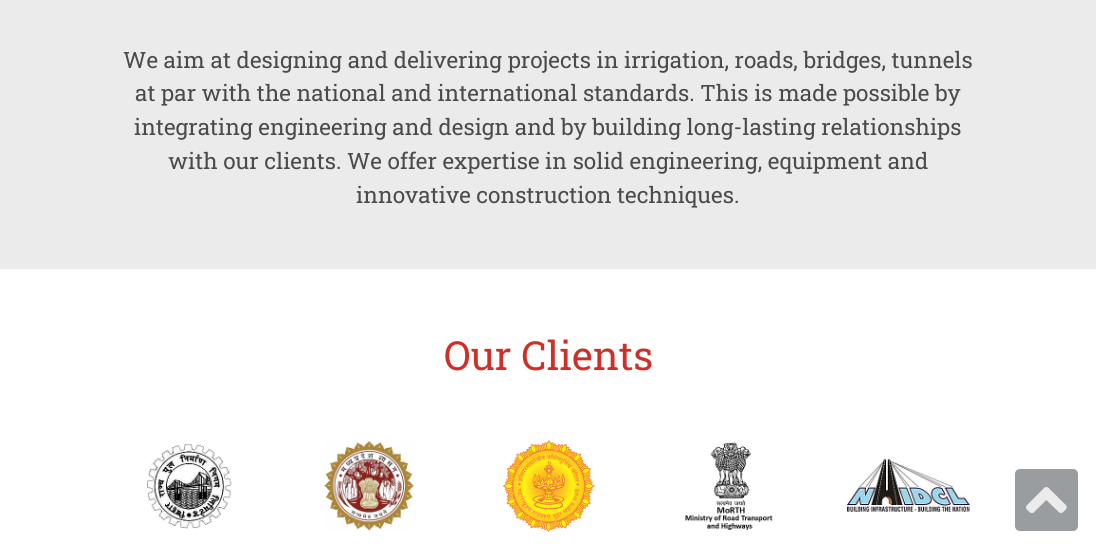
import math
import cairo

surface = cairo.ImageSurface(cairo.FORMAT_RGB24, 1096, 550)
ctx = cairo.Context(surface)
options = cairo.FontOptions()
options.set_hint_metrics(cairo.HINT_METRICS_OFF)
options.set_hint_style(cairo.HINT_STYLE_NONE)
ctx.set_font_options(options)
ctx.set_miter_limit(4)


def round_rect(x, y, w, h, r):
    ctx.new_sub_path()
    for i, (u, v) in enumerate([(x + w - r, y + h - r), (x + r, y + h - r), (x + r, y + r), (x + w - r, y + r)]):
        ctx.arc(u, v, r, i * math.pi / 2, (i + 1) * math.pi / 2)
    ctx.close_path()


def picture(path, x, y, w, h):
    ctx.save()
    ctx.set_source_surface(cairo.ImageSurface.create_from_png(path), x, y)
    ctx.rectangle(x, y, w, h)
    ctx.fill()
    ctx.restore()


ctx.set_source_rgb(1, 1, 1)
ctx.paint()
ctx.set_source_rgb(0.918, 0.918, 0.918)
ctx.rectangle(0, 0, 1096, 269)
ctx.fill()
ctx.select_font_face("Roboto Slab")
ctx.set_font_size(22.5)
ctx.set_source_rgb(0.294, 0.294, 0.294)
ctx.move_to(123, 68)
ctx.show_text("We aim at designing and delivering projects in irrigation, roads, bridges, tunnels")
ctx.move_to(135, 101)
ctx.show_text("at par with the national and international standards. This is made possible by")
ctx.move_to(134, 135)
ctx.show_text("integrating engineering and design and by building long-lasting relationships")
ctx.move_to(168, 169)
ctx.show_text("with our clients. We offer expertise in solid engineering, equipment and")
ctx.move_to(356, 203)
ctx.show_text("innovative construction techniques.")
ctx.set_font_size(40)
ctx.set_source_rgb(0.808, 0.188, 0.161)
ctx.move_to(444, 370)
ctx.show_text("Our Clients")
picture("img1.png", 146, 444, 86, 85)
picture("img2.png", 324, 441, 90, 90)
picture("img3.png", 503, 440, 92, 92)
picture("img4.png", 685, 442, 88, 88)
picture("img5.png", 845, 458, 126, 54)
ctx.set_source_rgb(0.604, 0.616, 0.627)
round_rect(1015, 469, 63, 62, 5)
ctx.fill()
picture("img6.png", 1026, 487, 41, 27)
surface.write_to_png("page.png")
